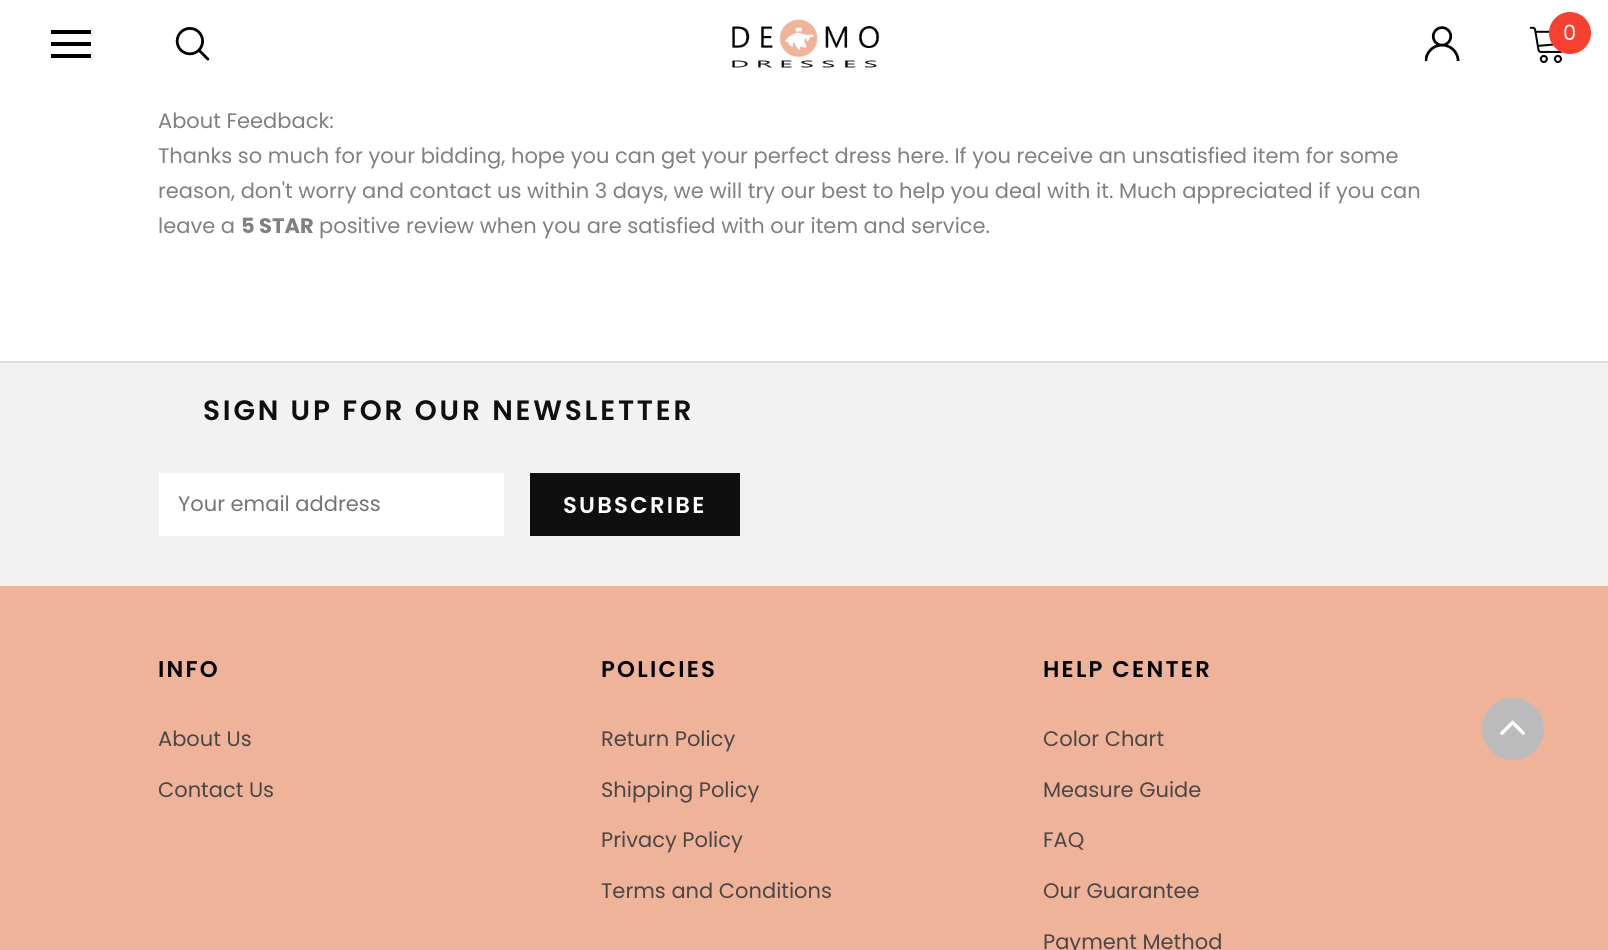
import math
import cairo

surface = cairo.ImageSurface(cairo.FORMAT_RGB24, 1608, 950)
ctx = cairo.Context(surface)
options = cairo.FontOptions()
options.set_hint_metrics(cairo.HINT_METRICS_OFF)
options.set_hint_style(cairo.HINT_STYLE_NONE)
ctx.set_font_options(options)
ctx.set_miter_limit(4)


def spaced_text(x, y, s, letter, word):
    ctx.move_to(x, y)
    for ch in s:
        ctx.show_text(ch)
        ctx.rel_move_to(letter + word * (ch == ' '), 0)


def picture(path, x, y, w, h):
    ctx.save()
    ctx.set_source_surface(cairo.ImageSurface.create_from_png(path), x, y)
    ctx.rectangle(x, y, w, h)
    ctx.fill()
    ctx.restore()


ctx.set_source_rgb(1, 1, 1)
ctx.paint()
ctx.set_source_rgb(0, 0, 0)
ctx.rectangle(51, 42, 40, 4)
ctx.fill()
ctx.rectangle(51, 30, 40, 4)
ctx.fill()
ctx.rectangle(51, 54, 40, 4)
ctx.fill()
picture("img1.png", 175, 27, 35, 34)
picture("img2.png", 732, 19, 148, 49)
picture("img3.png", 1425, 26, 35, 35)
picture("img4.png", 1529, 26, 33, 37)
ctx.set_source_rgb(0.969, 0.251, 0.188)
ctx.arc(1570, 33, 21, 0, 2 * math.pi)
ctx.fill()
ctx.select_font_face("Poppins")
ctx.set_font_size(21)
ctx.set_source_rgb(1, 1, 1)
ctx.move_to(1563, 40)
ctx.show_text("0")
ctx.set_source_rgb(0.502, 0.502, 0.502)
ctx.move_to(158, 128)
ctx.show_text("About Feedback:")
ctx.move_to(158, 163)
ctx.show_text("Thanks so much for your bidding, hope you can get your perfect dress here. If you receive an unsatisfied item for some")
ctx.move_to(158, 198)
ctx.show_text("reason, don't worry and contact us within 3 days, we will try our best to help you deal with it. Much appreciated if you can")
ctx.move_to(158, 233)
ctx.show_text("leave a")
ctx.select_font_face("Poppins", cairo.FONT_SLANT_NORMAL, cairo.FONT_WEIGHT_BOLD)
ctx.move_to(241, 233)
ctx.show_text("5 STAR")
ctx.select_font_face("Poppins")
ctx.move_to(319, 233)
ctx.show_text("positive review when you are satisfied with our item and service.")
ctx.set_source_rgb(0.949, 0.949, 0.949)
ctx.rectangle(0, 363, 1608, 223)
ctx.fill()
ctx.set_source_rgb(0.867, 0.867, 0.867)
ctx.rectangle(0, 361, 1608, 2)
ctx.fill()
ctx.select_font_face("Poppins SemiBold")
ctx.set_font_size(28)
ctx.set_source_rgb(0.059, 0.059, 0.059)
spaced_text(203, 420, "SIGN UP FOR OUR NEWSLETTER", 2.8, 0)
ctx.set_source_rgb(1, 1, 1)
ctx.rectangle(159, 473, 345, 63)
ctx.fill()
ctx.select_font_face("Poppins")
ctx.set_font_size(21)
ctx.set_source_rgb(0.459, 0.459, 0.459)
ctx.move_to(178, 511)
ctx.show_text("Your email address")
ctx.set_source_rgb(0.059, 0.059, 0.059)
ctx.rectangle(530, 473, 210, 63)
ctx.fill()
ctx.select_font_face("Poppins SemiBold")
ctx.set_font_size(22.75)
ctx.set_source_rgb(1, 1, 1)
spaced_text(563, 513, "SUBSCRIBE", 2.25, 0)
ctx.set_source_rgb(0.937, 0.702, 0.604)
ctx.rectangle(0, 586, 1608, 364)
ctx.fill()
ctx.set_source_rgb(0, 0, 0)
spaced_text(158, 677, "INFO", 2.25, 0)
ctx.select_font_face("Poppins")
ctx.set_font_size(21)
ctx.set_source_rgb(0.294, 0.275, 0.275)
ctx.move_to(158, 746)
ctx.show_text("About Us")
ctx.move_to(158, 797)
ctx.show_text("Contact Us")
ctx.select_font_face("Poppins SemiBold")
ctx.set_font_size(22.75)
ctx.set_source_rgb(0, 0, 0)
spaced_text(601, 677, "POLICIES", 2.25, 0)
ctx.select_font_face("Poppins")
ctx.set_font_size(21)
ctx.set_source_rgb(0.294, 0.275, 0.275)
ctx.move_to(601, 746)
ctx.show_text("Return Policy")
ctx.move_to(601, 797)
ctx.show_text("Shipping Policy")
ctx.move_to(601, 847)
ctx.show_text("Privacy Policy")
ctx.move_to(601, 898)
ctx.show_text("Terms and Conditions")
ctx.select_font_face("Poppins SemiBold")
ctx.set_font_size(22.75)
ctx.set_source_rgb(0, 0, 0)
spaced_text(1043, 677, "HELP CENTER", 2.25, 0)
ctx.select_font_face("Poppins")
ctx.set_font_size(21)
ctx.set_source_rgb(0.294, 0.275, 0.275)
ctx.move_to(1043, 746)
ctx.show_text("Color Chart")
ctx.move_to(1043, 797)
ctx.show_text("Measure Guide")
ctx.move_to(1043, 847)
ctx.show_text("FAQ")
ctx.move_to(1043, 898)
ctx.show_text("Our Guarantee")
ctx.move_to(1043, 949)
ctx.show_text("Payment Method")
ctx.set_source_rgb(0.733, 0.733, 0.733)
ctx.new_path()
ctx.arc(1513, 729, 30, 0, 2 * math.pi)
ctx.fill_preserve()
ctx.stroke()
picture("img5.png", 1500, 720, 26, 15)
surface.write_to_png("page.png")
